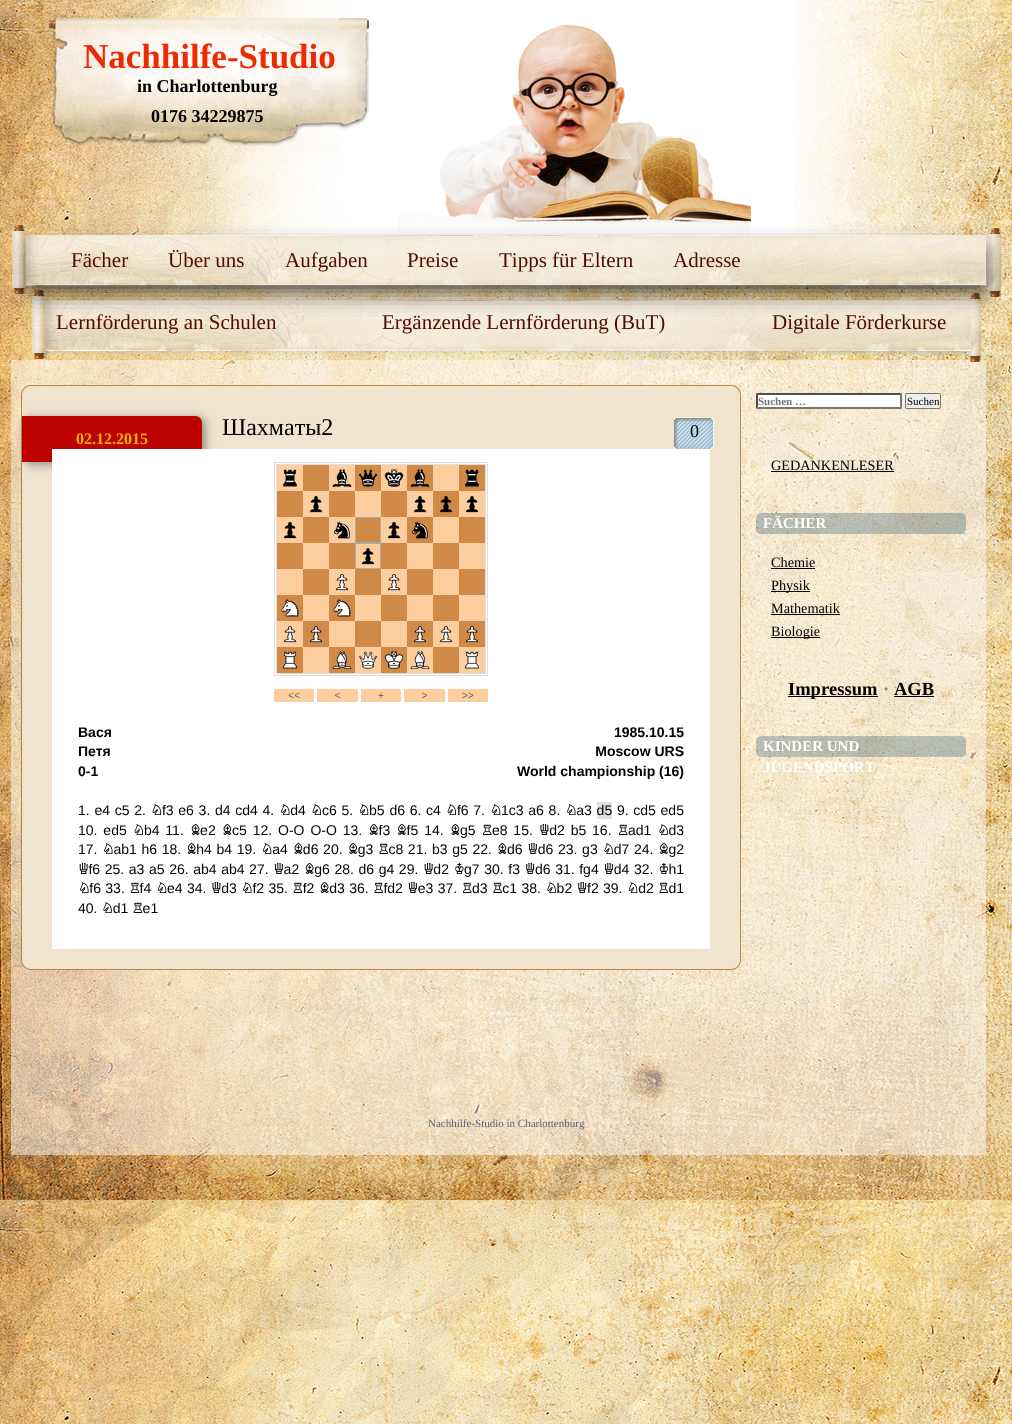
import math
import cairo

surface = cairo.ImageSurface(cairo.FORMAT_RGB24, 1012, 1424)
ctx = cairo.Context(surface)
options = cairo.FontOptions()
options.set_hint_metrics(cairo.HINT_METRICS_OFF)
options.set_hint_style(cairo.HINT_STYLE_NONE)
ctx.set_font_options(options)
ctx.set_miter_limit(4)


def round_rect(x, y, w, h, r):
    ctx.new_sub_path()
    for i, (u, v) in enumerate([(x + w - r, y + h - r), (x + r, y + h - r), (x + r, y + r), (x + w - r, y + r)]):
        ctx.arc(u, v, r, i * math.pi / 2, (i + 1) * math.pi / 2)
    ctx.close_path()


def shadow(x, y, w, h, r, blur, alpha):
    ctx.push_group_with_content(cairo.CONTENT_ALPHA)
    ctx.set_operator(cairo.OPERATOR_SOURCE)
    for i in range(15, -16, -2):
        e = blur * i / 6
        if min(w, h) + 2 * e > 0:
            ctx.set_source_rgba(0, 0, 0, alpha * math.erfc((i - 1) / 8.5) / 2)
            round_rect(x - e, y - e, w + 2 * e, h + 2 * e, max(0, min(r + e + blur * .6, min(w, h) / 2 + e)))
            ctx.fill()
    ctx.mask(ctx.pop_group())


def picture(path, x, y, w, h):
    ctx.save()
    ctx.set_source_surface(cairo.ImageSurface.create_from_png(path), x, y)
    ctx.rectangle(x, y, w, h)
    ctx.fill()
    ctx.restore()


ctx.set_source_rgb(1, 1, 1)
ctx.paint()
picture("img1.png", 0, 0, 1012, 1424)
picture("img4.png", 25, 0, 976, 235)
picture("img2.png", 49, 18, 290, 133)
ctx.select_font_face("Liberation Serif", cairo.FONT_SLANT_NORMAL, cairo.FONT_WEIGHT_BOLD)
ctx.set_font_size(35)
ctx.set_source_rgb(0.933, 0.169, 0)
ctx.move_to(83, 68)
ctx.show_text("Nachhilfe-Studio")
ctx.set_font_size(18)
ctx.set_source_rgb(0, 0, 0)
ctx.move_to(137, 92)
ctx.show_text("in Charlottenburg")
ctx.move_to(151, 122)
ctx.show_text("0176 34229875")
picture("img3.png", 339, 18, 30, 112)
picture("img5.png", 11, 225, 989, 69)
picture("img6.png", 987, 228, 14, 69)
ctx.set_source_rgba(1, 0.98, 0.98, 0.5)
ctx.rectangle(11, 360, 975, 795)
ctx.fill()
picture("img7.png", 967, 293, 14, 69)
picture("img8.png", 31, 290, 940, 69)
ctx.save()
ctx.rectangle(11, 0, 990, 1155)
ctx.clip()
ctx.set_fill_rule(cairo.FILL_RULE_EVEN_ODD)
ctx.new_path()
ctx.move_to(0, 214)
ctx.line_to(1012, 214)
ctx.line_to(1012, 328)
ctx.line_to(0, 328)
ctx.close_path()
ctx.move_to(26, 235)
ctx.line_to(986, 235)
ctx.line_to(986, 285)
ctx.line_to(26, 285)
ctx.close_path()
ctx.clip()
ctx.set_source_rgb(0, 0, 0)
shadow(33, 251, 950, 40, 0, 12, 0.75)
ctx.restore()
ctx.select_font_face("Liberation Serif")
ctx.set_font_size(21)
ctx.set_source_rgb(0.325, 0.043, 0.004)
ctx.move_to(71, 267)
ctx.show_text("Fächer")
ctx.move_to(168, 267)
ctx.show_text("Über uns")
ctx.move_to(285, 267)
ctx.show_text("Aufgaben")
ctx.move_to(407, 267)
ctx.show_text("Preise")
ctx.move_to(499, 267)
ctx.show_text("Tipps für Eltern")
ctx.move_to(673, 267)
ctx.show_text("Adresse")
ctx.move_to(56, 329)
ctx.show_text("Lernförderung an Schulen")
ctx.move_to(382, 329)
ctx.show_text("Ergänzende Lernförderung (BuT)")
ctx.move_to(772, 329)
ctx.show_text("Digitale Förderkurse")
ctx.set_source_rgb(0.945, 0.894, 0.808)
round_rect(21.5, 385.5, 719, 584, 9.5)
ctx.fill_preserve()
ctx.set_source_rgb(0.725, 0.514, 0.29)
ctx.set_line_width(1)
ctx.stroke()
ctx.set_source_rgb(0.533, 0.533, 0.533)
shadow(25, 418, 180, 46, 7, 5, 1)
ctx.set_source_rgb(0.741, 0.008, 0.008)
ctx.new_path()
ctx.move_to(22, 416)
ctx.line_to(195, 416)
ctx.curve_to(199, 416, 202, 419, 202, 423)
ctx.line_to(202, 455)
ctx.curve_to(202, 459, 199, 462, 195, 462)
ctx.line_to(22, 462)
ctx.close_path()
ctx.fill()
ctx.select_font_face("Liberation Serif", cairo.FONT_SLANT_NORMAL, cairo.FONT_WEIGHT_BOLD)
ctx.set_font_size(16)
ctx.set_source_rgb(0.957, 0.702, 0)
ctx.move_to(76, 444)
ctx.show_text("02.12.2015")
ctx.select_font_face("Liberation Serif")
ctx.set_font_size(24)
ctx.set_source_rgb(0, 0, 0)
ctx.move_to(222, 435)
ctx.show_text("Шахматы2")
picture("img9.png", 674, 417, 40, 41)
ctx.set_font_size(18)
ctx.move_to(690, 437)
ctx.show_text("0")
picture("img10.png", 52, 449, 658, 500)
ctx.set_source_rgb(1, 1, 1)
ctx.rectangle(756, 393, 146, 16)
ctx.fill()
ctx.set_source_rgb(0.31, 0.31, 0.31)
ctx.new_path()
ctx.move_to(756, 393)
ctx.line_to(902, 393)
ctx.line_to(900, 395)
ctx.line_to(758, 395)
ctx.close_path()
ctx.fill()
ctx.set_source_rgb(0.463, 0.463, 0.463)
ctx.new_path()
ctx.move_to(902, 393)
ctx.line_to(902, 409)
ctx.line_to(900, 407)
ctx.line_to(900, 395)
ctx.close_path()
ctx.fill()
ctx.new_path()
ctx.move_to(902, 409)
ctx.line_to(756, 409)
ctx.line_to(758, 407)
ctx.line_to(900, 407)
ctx.close_path()
ctx.fill()
ctx.set_source_rgb(0.31, 0.31, 0.31)
ctx.new_path()
ctx.move_to(756, 409)
ctx.line_to(756, 393)
ctx.line_to(758, 395)
ctx.line_to(758, 407)
ctx.close_path()
ctx.fill()
ctx.select_font_face("Liberation Serif", cairo.FONT_SLANT_NORMAL, cairo.FONT_WEIGHT_BOLD)
ctx.set_font_size(11)
ctx.set_source_rgb(0.459, 0.459, 0.459)
ctx.move_to(758, 405)
ctx.show_text("Suchen …")
ctx.set_source_rgb(0.937, 0.937, 0.937)
round_rect(905.5, 393.5, 35, 15, 1.5)
ctx.fill_preserve()
ctx.set_source_rgb(0.463, 0.463, 0.463)
ctx.stroke()
ctx.select_font_face("Liberation Serif")
ctx.set_source_rgb(0, 0, 0)
ctx.move_to(907, 405)
ctx.show_text("Suchen")
ctx.set_font_size(14.25)
ctx.move_to(771, 470)
ctx.show_text("GEDANKENLESER")
ctx.rectangle(771, 471, 123, 1)
ctx.fill()
picture("img11.png", 756, 513, 210, 21)
ctx.select_font_face("Liberation Serif", cairo.FONT_SLANT_NORMAL, cairo.FONT_WEIGHT_BOLD)
ctx.set_font_size(15)
ctx.set_source_rgb(1, 1, 1)
ctx.move_to(763, 528)
ctx.show_text("FÄCHER")
ctx.select_font_face("Liberation Serif")
ctx.set_font_size(14.25)
ctx.set_source_rgb(0, 0, 0)
ctx.move_to(771, 567)
ctx.show_text("Chemie")
ctx.rectangle(771, 568, 44, 1)
ctx.fill()
ctx.rectangle(771, 591, 39, 1)
ctx.fill()
ctx.move_to(771, 590)
ctx.show_text("Physik")
ctx.move_to(771, 613)
ctx.show_text("Mathematik")
ctx.rectangle(771, 614, 69, 1)
ctx.fill()
ctx.rectangle(771, 637, 49, 1)
ctx.fill()
ctx.move_to(771, 636)
ctx.show_text("Biologie")
ctx.rectangle(788, 696, 90, 1)
ctx.fill()
ctx.select_font_face("Liberation Serif", cairo.FONT_SLANT_NORMAL, cairo.FONT_WEIGHT_BOLD)
ctx.set_font_size(18.5)
ctx.move_to(788, 695)
ctx.show_text("Impressum")
ctx.set_source_rgb(0.502, 0.502, 0.502)
ctx.move_to(883, 695)
ctx.show_text("·")
ctx.set_source_rgb(0, 0, 0)
ctx.move_to(894, 695)
ctx.show_text("AGB")
ctx.rectangle(894, 696, 40, 1)
ctx.fill()
picture("img12.png", 756, 736, 210, 21)
ctx.set_font_size(15)
ctx.set_source_rgb(1, 1, 1)
ctx.move_to(763, 751)
ctx.show_text("KINDER UND")
ctx.move_to(763, 772)
ctx.show_text("JUGENDSPORT")
ctx.select_font_face("Liberation Serif")
ctx.set_font_size(11)
ctx.set_source_rgb(0.322, 0.388, 0.451)
ctx.move_to(428, 1127)
ctx.show_text("Nachhilfe-Studio in Charlottenburg")
surface.write_to_png("page.png")
